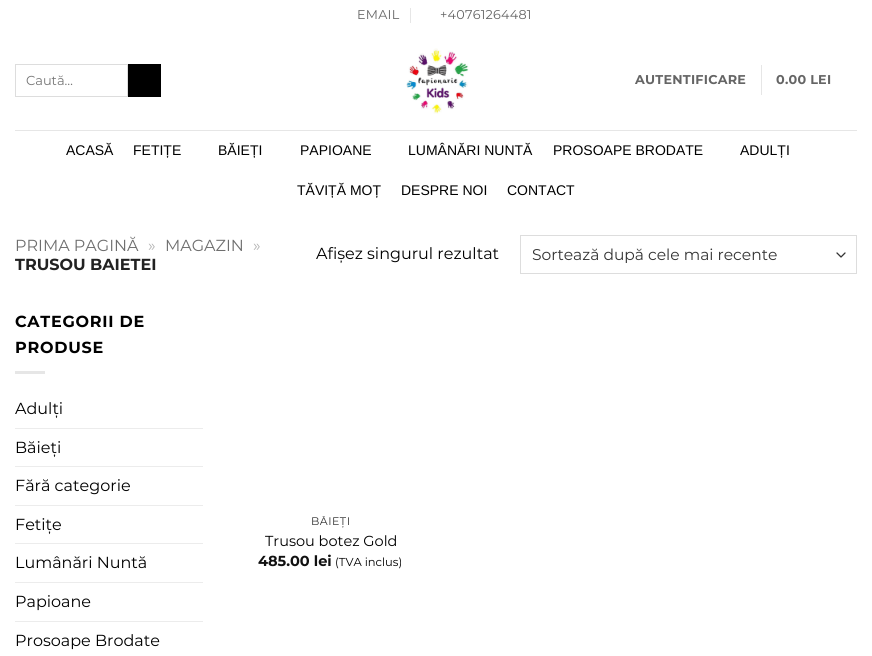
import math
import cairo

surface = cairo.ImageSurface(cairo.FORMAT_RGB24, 872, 656)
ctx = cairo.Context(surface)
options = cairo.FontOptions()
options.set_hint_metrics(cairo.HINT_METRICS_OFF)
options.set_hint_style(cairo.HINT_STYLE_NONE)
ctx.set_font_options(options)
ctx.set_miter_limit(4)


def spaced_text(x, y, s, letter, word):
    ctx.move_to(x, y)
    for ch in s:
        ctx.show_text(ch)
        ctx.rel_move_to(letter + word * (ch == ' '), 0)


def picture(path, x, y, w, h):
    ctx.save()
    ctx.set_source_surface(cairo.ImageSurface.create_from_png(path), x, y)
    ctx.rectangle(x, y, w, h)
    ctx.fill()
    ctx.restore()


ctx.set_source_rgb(1, 1, 1)
ctx.paint()
ctx.select_font_face("Montserrat")
ctx.set_font_size(12.75)
ctx.set_source_rgb(0.396, 0.396, 0.396)
spaced_text(357, 19, "EMAIL", 0.25, 0)
ctx.set_source_rgb(0.902, 0.902, 0.902)
ctx.rectangle(410, 8, 1, 15)
ctx.fill()
ctx.set_source_rgb(0.396, 0.396, 0.396)
spaced_text(440, 19, "+40761264481", 0.25, 0)
ctx.rectangle(15.5, 64.5, 112, 32)
ctx.set_source_rgb(0.867, 0.867, 0.867)
ctx.set_line_width(1)
ctx.stroke()
ctx.set_font_size(13)
ctx.set_source_rgb(0.459, 0.459, 0.459)
ctx.move_to(26, 85)
ctx.show_text("Caută…")
ctx.set_source_rgb(0, 0, 0)
ctx.rectangle(128, 64, 33, 33)
ctx.fill()
picture("img1.png", 406, 48, 63, 66)
ctx.select_font_face("Montserrat", cairo.FONT_SLANT_NORMAL, cairo.FONT_WEIGHT_BOLD)
ctx.set_font_size(12.75)
ctx.set_source_rgb(0.396, 0.396, 0.396)
spaced_text(635, 84, "AUTENTIFICARE", 0.25, 0)
ctx.set_source_rgb(0.902, 0.902, 0.902)
ctx.rectangle(761, 65, 1, 30)
ctx.fill()
ctx.set_source_rgb(0.396, 0.396, 0.396)
spaced_text(776, 84, "0.00 LEI", 0.25, 0)
ctx.set_source_rgb(0.902, 0.902, 0.902)
ctx.rectangle(15, 130, 842, 1)
ctx.fill()
ctx.select_font_face("Liberation Sans")
ctx.set_font_size(14)
ctx.set_source_rgb(0, 0, 0)
ctx.move_to(66, 155)
ctx.show_text("ACASĂ")
ctx.move_to(133, 155)
ctx.show_text("FETIȚE")
ctx.move_to(218, 155)
ctx.show_text("BĂIEȚI")
ctx.move_to(300, 155)
ctx.show_text("PAPIOANE")
ctx.move_to(408, 155)
ctx.show_text("LUMÂNĂRI NUNTĂ")
ctx.move_to(553, 155)
ctx.show_text("PROSOAPE BRODATE")
ctx.move_to(740, 155)
ctx.show_text("ADULȚI")
ctx.move_to(297, 195)
ctx.show_text("TĂVIȚĂ MOȚ")
ctx.move_to(401, 195)
ctx.show_text("DESPRE NOI")
ctx.move_to(507, 195)
ctx.show_text("CONTACT")
ctx.select_font_face("Montserrat")
ctx.set_font_size(16)
ctx.set_source_rgb(0.431, 0.431, 0.431)
ctx.move_to(15, 251)
ctx.show_text("PRIMA PAGINĂ")
ctx.set_source_rgb(0.698, 0.698, 0.698)
ctx.move_to(148, 251)
ctx.show_text("»")
ctx.set_source_rgb(0.431, 0.431, 0.431)
ctx.move_to(165, 251)
ctx.show_text("MAGAZIN")
ctx.set_source_rgb(0.698, 0.698, 0.698)
ctx.move_to(253, 251)
ctx.show_text("»")
ctx.select_font_face("Montserrat", cairo.FONT_SLANT_NORMAL, cairo.FONT_WEIGHT_BOLD)
ctx.set_source_rgb(0.133, 0.133, 0.133)
ctx.move_to(15, 270)
ctx.show_text("TRUSOU BAIETEI")
ctx.select_font_face("Montserrat")
ctx.set_source_rgb(0, 0, 0)
ctx.move_to(316, 259)
ctx.show_text("Afișez singurul rezultat")
ctx.new_path()
ctx.move_to(837, 253)
ctx.line_to(841, 257)
ctx.line_to(845, 253)
ctx.set_source_rgb(0.2, 0.2, 0.2)
ctx.set_line_width(1.3)
ctx.set_line_cap(cairo.LINE_CAP_ROUND)
ctx.set_line_join(cairo.LINE_JOIN_ROUND)
ctx.stroke()
ctx.rectangle(520.5, 235.5, 336, 38)
ctx.set_source_rgb(0.867, 0.867, 0.867)
ctx.set_line_width(1)
ctx.set_line_cap(cairo.LINE_CAP_BUTT)
ctx.set_line_join(cairo.LINE_JOIN_MITER)
ctx.stroke()
ctx.set_font_size(15.5)
ctx.set_source_rgb(0.2, 0.2, 0.2)
ctx.move_to(532, 260)
ctx.show_text("Sortează după cele mai recente")
ctx.select_font_face("Montserrat", cairo.FONT_SLANT_NORMAL, cairo.FONT_WEIGHT_BOLD)
ctx.set_font_size(16)
ctx.set_source_rgb(0, 0, 0)
spaced_text(15, 327, "CATEGORII DE", 0.75, 0)
spaced_text(15, 353, "PRODUSE", 0.75, 0)
ctx.set_source_rgb(0.902, 0.902, 0.902)
ctx.rectangle(15, 371, 30, 3)
ctx.fill()
ctx.select_font_face("Montserrat")
ctx.set_source_rgb(0, 0, 0)
ctx.move_to(15, 414)
ctx.show_text("Adulți")
ctx.set_source_rgb(0.925, 0.925, 0.925)
ctx.rectangle(15, 428, 188, 1)
ctx.fill()
ctx.set_source_rgb(0, 0, 0)
ctx.move_to(15, 453)
ctx.show_text("Băieți")
ctx.set_source_rgb(0.925, 0.925, 0.925)
ctx.rectangle(15, 466, 188, 1)
ctx.fill()
ctx.set_source_rgb(0, 0, 0)
ctx.move_to(15, 491)
ctx.show_text("Fără categorie")
ctx.set_source_rgb(0.925, 0.925, 0.925)
ctx.rectangle(15, 505, 188, 1)
ctx.fill()
ctx.set_source_rgb(0, 0, 0)
ctx.move_to(15, 530)
ctx.show_text("Fetițe")
ctx.set_source_rgb(0.925, 0.925, 0.925)
ctx.rectangle(15, 543, 188, 1)
ctx.fill()
ctx.set_source_rgb(0, 0, 0)
ctx.move_to(15, 568)
ctx.show_text("Lumânări Nuntă")
ctx.set_source_rgb(0.925, 0.925, 0.925)
ctx.rectangle(15, 582, 188, 1)
ctx.fill()
ctx.set_source_rgb(0, 0, 0)
ctx.move_to(15, 607)
ctx.show_text("Papioane")
ctx.set_source_rgb(0.925, 0.925, 0.925)
ctx.rectangle(15, 621, 188, 1)
ctx.fill()
ctx.set_source_rgb(0, 0, 0)
ctx.move_to(15, 646)
ctx.show_text("Prosoape Brodate")
ctx.save()
ctx.rectangle(243, 516, 175, 13)
ctx.clip()
ctx.set_font_size(11)
ctx.set_source_rgb(0.2, 0.2, 0.2)
spaced_text(311, 525, "BĂIEȚI", 0.5, 0)
ctx.restore()
ctx.set_font_size(14.5)
ctx.move_to(265, 546)
ctx.show_text("Trusou botez Gold")
ctx.select_font_face("Montserrat", cairo.FONT_SLANT_NORMAL, cairo.FONT_WEIGHT_BOLD)
ctx.set_source_rgb(0.067, 0.067, 0.067)
ctx.move_to(258, 566)
ctx.show_text("485.00 lei")
ctx.select_font_face("Montserrat")
ctx.set_font_size(11.5)
ctx.set_source_rgb(0, 0, 0)
ctx.move_to(335, 566)
ctx.show_text("(TVA inclus)")
surface.write_to_png("page.png")
